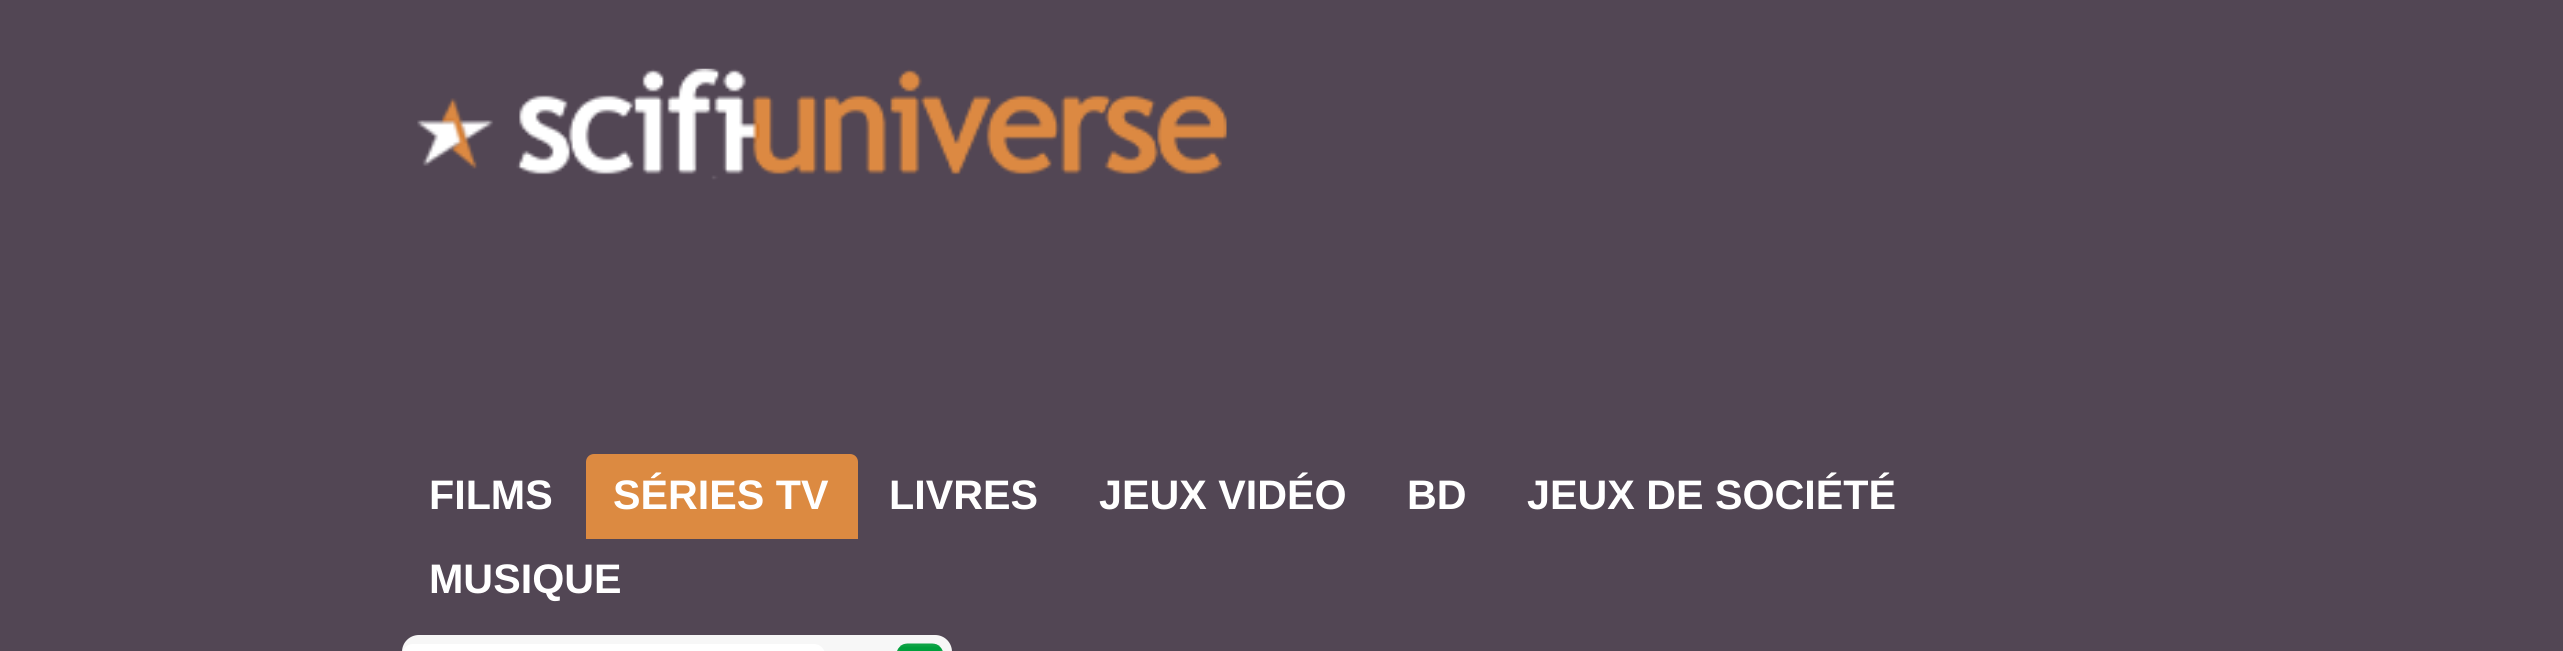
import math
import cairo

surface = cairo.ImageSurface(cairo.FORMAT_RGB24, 2563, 651)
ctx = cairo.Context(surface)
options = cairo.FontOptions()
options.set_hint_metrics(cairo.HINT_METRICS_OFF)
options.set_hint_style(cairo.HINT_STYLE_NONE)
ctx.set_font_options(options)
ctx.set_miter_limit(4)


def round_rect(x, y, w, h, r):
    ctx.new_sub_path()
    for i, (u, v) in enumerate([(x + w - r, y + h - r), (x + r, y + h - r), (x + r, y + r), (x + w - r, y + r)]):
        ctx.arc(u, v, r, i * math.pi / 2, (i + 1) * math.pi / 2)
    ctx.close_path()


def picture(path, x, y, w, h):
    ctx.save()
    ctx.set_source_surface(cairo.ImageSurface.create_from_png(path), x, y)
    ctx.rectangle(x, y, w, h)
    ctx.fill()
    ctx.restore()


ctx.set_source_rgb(0.322, 0.275, 0.329)
ctx.paint()
picture("img1.png", 417, 68, 810, 112)
ctx.select_font_face("Liberation Sans", cairo.FONT_SLANT_NORMAL, cairo.FONT_WEIGHT_BOLD)
ctx.set_font_size(41.25)
ctx.set_source_rgb(1, 1, 1)
ctx.move_to(429, 509)
ctx.show_text("FILMS")
ctx.set_source_rgb(0.863, 0.541, 0.255)
ctx.new_path()
ctx.move_to(594, 454)
ctx.line_to(850, 454)
ctx.curve_to(854.5, 454, 858, 457.5, 858, 462)
ctx.line_to(858, 539)
ctx.line_to(586, 539)
ctx.line_to(586, 462)
ctx.curve_to(586, 457.5, 589.5, 454, 594, 454)
ctx.close_path()
ctx.fill()
ctx.set_source_rgb(1, 1, 1)
ctx.move_to(613, 509)
ctx.show_text("SÉRIES TV")
ctx.move_to(889, 509)
ctx.show_text("LIVRES")
ctx.move_to(1099, 509)
ctx.show_text("JEUX VIDÉO")
ctx.move_to(1407, 509)
ctx.show_text("BD")
ctx.move_to(1527, 509)
ctx.show_text("JEUX DE SOCIÉTÉ")
ctx.move_to(429, 593)
ctx.show_text("MUSIQUE")
ctx.set_source_rgb(0.965, 0.965, 0.965)
ctx.new_path()
ctx.move_to(419, 635)
ctx.line_to(935, 635)
ctx.curve_to(944.5, 635, 952, 642.5, 952, 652)
ctx.line_to(952, 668)
ctx.line_to(402, 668)
ctx.line_to(402, 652)
ctx.curve_to(402, 642.5, 409.5, 635, 419, 635)
ctx.close_path()
ctx.fill()
ctx.set_source_rgb(1, 1, 1)
round_rect(402, 644, 423, 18, 11)
ctx.fill()
picture("img2.png", 897, 643, 46, 8)
surface.write_to_png("page.png")
